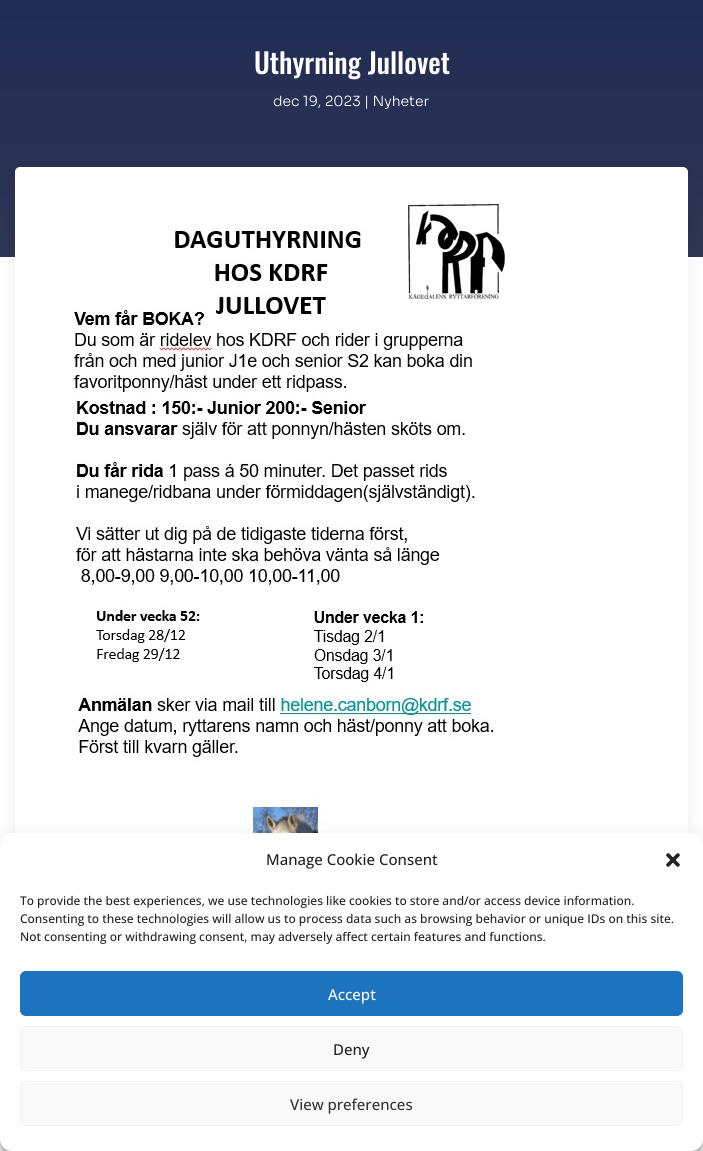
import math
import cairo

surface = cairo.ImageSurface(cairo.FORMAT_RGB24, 703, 1151)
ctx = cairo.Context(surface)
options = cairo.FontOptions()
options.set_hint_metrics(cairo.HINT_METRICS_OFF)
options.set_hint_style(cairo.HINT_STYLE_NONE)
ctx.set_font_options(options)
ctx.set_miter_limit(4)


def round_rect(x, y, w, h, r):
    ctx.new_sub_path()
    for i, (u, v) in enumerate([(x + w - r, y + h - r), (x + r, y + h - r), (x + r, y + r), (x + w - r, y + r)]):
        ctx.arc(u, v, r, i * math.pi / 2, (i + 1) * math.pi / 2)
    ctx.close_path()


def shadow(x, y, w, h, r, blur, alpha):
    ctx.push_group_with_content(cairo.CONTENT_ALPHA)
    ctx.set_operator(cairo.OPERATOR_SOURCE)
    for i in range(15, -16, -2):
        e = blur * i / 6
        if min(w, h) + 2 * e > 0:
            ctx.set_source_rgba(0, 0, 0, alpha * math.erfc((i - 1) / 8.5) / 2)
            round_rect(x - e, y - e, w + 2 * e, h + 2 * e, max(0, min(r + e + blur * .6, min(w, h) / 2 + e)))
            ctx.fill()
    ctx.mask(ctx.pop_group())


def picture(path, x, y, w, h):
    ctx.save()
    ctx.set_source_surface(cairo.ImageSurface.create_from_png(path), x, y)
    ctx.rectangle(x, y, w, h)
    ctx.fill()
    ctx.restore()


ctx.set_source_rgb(1, 1, 1)
ctx.paint()
gradient = cairo.LinearGradient(352, -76, 352, 257)
gradient.add_color_stop_rgba(0, 0.11, 0.161, 0.333, 1)
gradient.add_color_stop_rgba(1, 0.184, 0.208, 0.329, 1)
ctx.set_source(gradient)
ctx.rectangle(0, 0, 703, 257)
ctx.fill()
ctx.select_font_face("Oswald Medium")
ctx.set_font_size(28)
ctx.set_source_rgb(1, 1, 1)
ctx.move_to(254, 74)
ctx.show_text("Uthyrning Jullovet")
ctx.select_font_face("Sora Light")
ctx.set_font_size(14)
ctx.move_to(273, 106)
ctx.show_text("dec 19, 2023 | Nyheter")
ctx.set_source_rgb(0, 0, 0)
shadow(15, 169, 673, 883, 5, 9, 0.07)
ctx.set_source_rgb(1, 1, 1)
round_rect(15, 167, 673, 883, 5)
ctx.fill()
picture("img1.png", 72, 203, 433, 630)
ctx.set_source_rgb(0, 0, 0)
shadow(0, 839, 703, 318, 12, 3, 0.23)
shadow(0, 843, 703, 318, 12, 10, 0.19)
ctx.set_source_rgb(1, 1, 1)
round_rect(0, 833, 703, 318, 12)
ctx.fill()
ctx.select_font_face("Open Sans Medium")
ctx.set_font_size(15)
ctx.set_source_rgb(0.133, 0.133, 0.133)
ctx.move_to(266, 865)
ctx.show_text("Manage Cookie Consent")
picture("img2.png", 666, 853, 14, 14)
ctx.set_font_size(12)
ctx.move_to(20, 905)
ctx.show_text("To provide the best experiences, we use technologies like cookies to store and/or access device information.")
ctx.move_to(20, 923)
ctx.show_text("Consenting to these technologies will allow us to process data such as browsing behavior or unique IDs on this site.")
ctx.move_to(20, 941)
ctx.show_text("Not consenting or withdrawing consent, may adversely affect certain features and functions.")
ctx.set_source_rgb(0.118, 0.451, 0.745)
round_rect(20.5, 971.5, 662, 44, 5.5)
ctx.fill_preserve()
ctx.set_line_width(1)
ctx.stroke()
ctx.set_font_size(15)
ctx.set_source_rgb(1, 1, 1)
ctx.move_to(328, 1000)
ctx.show_text("Accept")
ctx.set_source_rgb(0.976, 0.976, 0.976)
round_rect(20.5, 1026.5, 662, 44, 5.5)
ctx.fill_preserve()
ctx.set_source_rgb(0.949, 0.949, 0.949)
ctx.stroke()
ctx.set_source_rgb(0.133, 0.133, 0.133)
ctx.move_to(333, 1055)
ctx.show_text("Deny")
ctx.set_source_rgb(0.976, 0.976, 0.976)
round_rect(20.5, 1081.5, 662, 44, 5.5)
ctx.fill_preserve()
ctx.set_source_rgb(0.949, 0.949, 0.949)
ctx.stroke()
ctx.set_source_rgb(0.2, 0.2, 0.2)
ctx.move_to(290, 1110)
ctx.show_text("View preferences")
surface.write_to_png("page.png")
